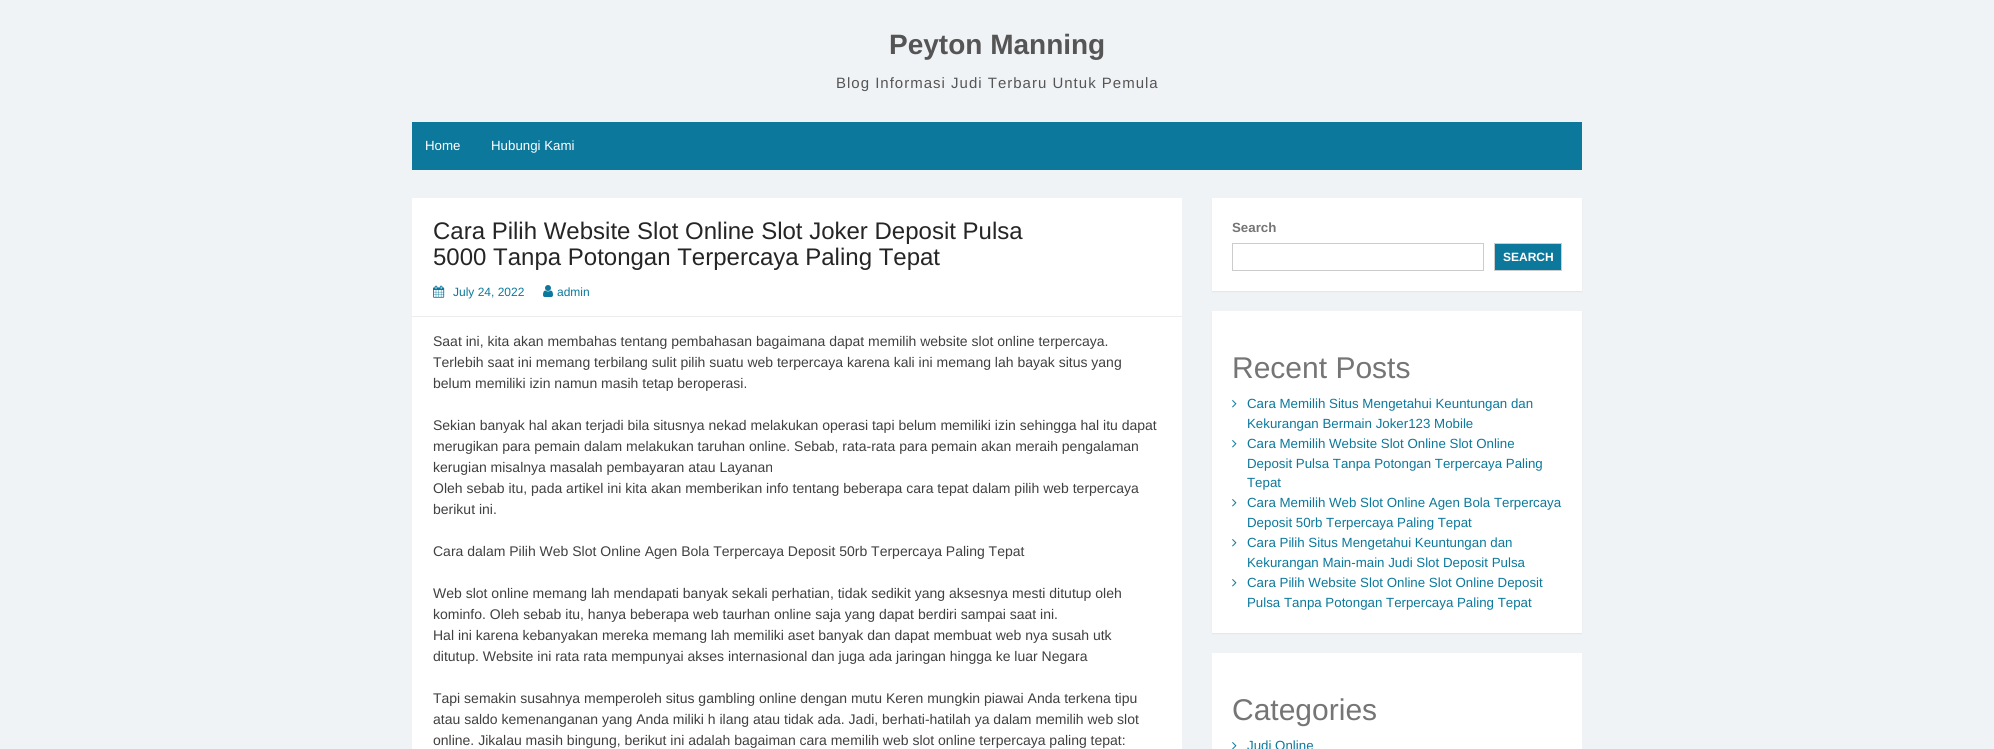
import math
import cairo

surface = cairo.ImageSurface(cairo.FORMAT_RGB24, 1994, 749)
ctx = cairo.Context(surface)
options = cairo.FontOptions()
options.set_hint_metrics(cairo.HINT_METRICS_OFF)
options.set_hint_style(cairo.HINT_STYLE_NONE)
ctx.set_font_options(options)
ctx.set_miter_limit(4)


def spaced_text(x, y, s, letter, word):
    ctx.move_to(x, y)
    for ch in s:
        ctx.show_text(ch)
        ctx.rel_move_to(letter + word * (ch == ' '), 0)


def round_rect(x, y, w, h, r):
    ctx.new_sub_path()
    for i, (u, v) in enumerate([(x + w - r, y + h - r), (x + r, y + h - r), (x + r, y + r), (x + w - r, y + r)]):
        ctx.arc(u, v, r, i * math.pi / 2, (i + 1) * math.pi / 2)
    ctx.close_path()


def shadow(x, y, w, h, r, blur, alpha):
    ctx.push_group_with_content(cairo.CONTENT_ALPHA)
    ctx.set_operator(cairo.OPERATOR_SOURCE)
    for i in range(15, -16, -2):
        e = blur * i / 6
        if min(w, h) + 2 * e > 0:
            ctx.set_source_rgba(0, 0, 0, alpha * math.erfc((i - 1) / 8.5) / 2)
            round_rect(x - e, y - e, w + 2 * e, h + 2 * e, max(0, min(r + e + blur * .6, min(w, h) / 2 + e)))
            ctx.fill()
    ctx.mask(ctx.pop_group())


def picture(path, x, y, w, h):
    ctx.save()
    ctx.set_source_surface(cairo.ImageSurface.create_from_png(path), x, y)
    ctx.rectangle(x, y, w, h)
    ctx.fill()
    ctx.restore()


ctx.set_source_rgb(0.941, 0.953, 0.961)
ctx.paint()
ctx.select_font_face("Liberation Sans", cairo.FONT_SLANT_NORMAL, cairo.FONT_WEIGHT_BOLD)
ctx.set_font_size(28)
ctx.set_source_rgb(0.333, 0.333, 0.333)
ctx.move_to(889, 54)
ctx.show_text("Peyton Manning")
ctx.select_font_face("Liberation Sans")
ctx.set_font_size(15)
spaced_text(836, 88, "Blog Informasi Judi Terbaru Untuk Pemula", 1, 0)
ctx.set_source_rgb(0.043, 0.471, 0.612)
ctx.rectangle(412, 122, 1170, 48)
ctx.fill()
ctx.set_font_size(13.3)
ctx.set_source_rgb(1, 1, 1)
ctx.move_to(425, 150)
ctx.show_text("Home")
ctx.move_to(491, 150)
ctx.show_text("Hubungi Kami")
ctx.rectangle(412, 198, 770, 551)
ctx.fill()
ctx.set_source_rgb(0.929, 0.929, 0.929)
ctx.rectangle(412, 316, 770, 1)
ctx.fill()
ctx.set_font_size(24)
ctx.set_source_rgb(0.145, 0.145, 0.145)
ctx.move_to(433, 239)
ctx.show_text("Cara Pilih Website Slot Online Slot Joker Deposit Pulsa")
ctx.move_to(433, 265)
ctx.show_text("5000 Tanpa Potongan Terpercaya Paling Tepat")
picture("img1.png", 433, 285, 12, 13)
ctx.set_font_size(12)
ctx.set_source_rgb(0.043, 0.471, 0.612)
ctx.move_to(453, 296)
ctx.show_text("July 24, 2022")
picture("img2.png", 543, 285, 10, 12)
ctx.move_to(557, 296)
ctx.show_text("admin")
ctx.set_font_size(14)
ctx.set_source_rgb(0.251, 0.251, 0.251)
ctx.move_to(433, 346)
ctx.show_text("Saat ini, kita akan membahas tentang pembahasan bagaimana dapat memilih website slot online terpercaya.")
ctx.move_to(433, 367)
ctx.show_text("Terlebih saat ini memang terbilang sulit pilih suatu web terpercaya karena kali ini memang lah bayak situs yang")
ctx.move_to(433, 388)
ctx.show_text("belum memiliki izin namun masih tetap beroperasi.")
ctx.move_to(433, 430)
ctx.show_text("Sekian banyak hal akan terjadi bila situsnya nekad melakukan operasi tapi belum memiliki izin sehingga hal itu dapat")
ctx.move_to(433, 451)
ctx.show_text("merugikan para pemain dalam melakukan taruhan online. Sebab, rata-rata para pemain akan meraih pengalaman")
ctx.move_to(433, 472)
ctx.show_text("kerugian misalnya masalah pembayaran atau Layanan")
ctx.move_to(433, 493)
ctx.show_text("Oleh sebab itu, pada artikel ini kita akan memberikan info tentang beberapa cara tepat dalam pilih web terpercaya")
ctx.move_to(433, 514)
ctx.show_text("berikut ini.")
ctx.move_to(433, 556)
ctx.show_text("Cara dalam Pilih Web Slot Online Agen Bola Terpercaya Deposit 50rb Terpercaya Paling Tepat")
ctx.move_to(433, 598)
ctx.show_text("Web slot online memang lah mendapati banyak sekali perhatian, tidak sedikit yang aksesnya mesti ditutup oleh")
ctx.move_to(433, 619)
ctx.show_text("kominfo. Oleh sebab itu, hanya beberapa web taurhan online saja yang dapat berdiri sampai saat ini.")
ctx.move_to(433, 640)
ctx.show_text("Hal ini karena kebanyakan mereka memang lah memiliki aset banyak dan dapat membuat web nya susah utk")
ctx.move_to(433, 661)
ctx.show_text("ditutup. Website ini rata rata mempunyai akses internasional dan juga ada jaringan hingga ke luar Negara")
ctx.move_to(433, 703)
ctx.show_text("Tapi semakin susahnya memperoleh situs gambling online dengan mutu Keren mungkin piawai Anda terkena tipu")
ctx.move_to(433, 724)
ctx.show_text("atau saldo kemenanganan yang Anda miliki h ilang atau tidak ada. Jadi, berhati-hatilah ya dalam memilih web slot")
ctx.move_to(433, 745)
ctx.show_text("online. Jikalau masih bingung, berikut ini adalah bagaiman cara memilih web slot online terpercaya paling tepat:")
ctx.set_source_rgb(0, 0, 0)
shadow(1212, 199, 370, 93, 0, 0.5, 0.06)
ctx.set_source_rgb(1, 1, 1)
ctx.rectangle(1212, 198, 370, 93)
ctx.fill()
ctx.select_font_face("Liberation Sans", cairo.FONT_SLANT_NORMAL, cairo.FONT_WEIGHT_BOLD)
ctx.set_font_size(13.3)
ctx.set_source_rgb(0.459, 0.459, 0.459)
ctx.move_to(1232, 232)
ctx.show_text("Search")
ctx.rectangle(1232.5, 243.5, 251, 27)
ctx.set_source_rgb(0.8, 0.8, 0.8)
ctx.set_line_width(1)
ctx.stroke()
ctx.set_source_rgb(0.043, 0.471, 0.612)
ctx.rectangle(1494.5, 243.5, 67, 27)
ctx.fill_preserve()
ctx.set_source_rgb(0.8, 0.8, 0.8)
ctx.stroke()
ctx.set_font_size(12)
ctx.set_source_rgb(1, 1, 1)
ctx.move_to(1503, 261)
ctx.show_text("SEARCH")
ctx.set_source_rgb(0, 0, 0)
shadow(1212, 312, 370, 322, 0, 0.5, 0.06)
ctx.set_source_rgb(1, 1, 1)
ctx.rectangle(1212, 311, 370, 322)
ctx.fill()
ctx.select_font_face("Liberation Sans")
ctx.set_font_size(30)
ctx.set_source_rgb(0.459, 0.459, 0.459)
ctx.move_to(1232, 378)
ctx.show_text("Recent Posts")
picture("img3.png", 1232, 400, 5, 8)
ctx.set_font_size(13.3)
ctx.set_source_rgb(0.043, 0.471, 0.612)
ctx.move_to(1247, 408)
ctx.show_text("Cara Memilih Situs Mengetahui Keuntungan dan")
ctx.move_to(1247, 428)
ctx.show_text("Kekurangan Bermain Joker123 Mobile")
picture("img3.png", 1232, 440, 5, 8)
ctx.move_to(1247, 448)
ctx.show_text("Cara Memilih Website Slot Online Slot Online")
ctx.move_to(1247, 468)
ctx.show_text("Deposit Pulsa Tanpa Potongan Terpercaya Paling")
ctx.move_to(1247, 487)
ctx.show_text("Tepat")
picture("img3.png", 1232, 499, 5, 8)
ctx.move_to(1247, 507)
ctx.show_text("Cara Memilih Web Slot Online Agen Bola Terpercaya")
ctx.move_to(1247, 527)
ctx.show_text("Deposit 50rb Terpercaya Paling Tepat")
picture("img3.png", 1232, 539, 5, 8)
ctx.move_to(1247, 547)
ctx.show_text("Cara Pilih Situs Mengetahui Keuntungan dan")
ctx.move_to(1247, 567)
ctx.show_text("Kekurangan Main-main Judi Slot Deposit Pulsa")
picture("img3.png", 1232, 579, 5, 8)
ctx.move_to(1247, 587)
ctx.show_text("Cara Pilih Website Slot Online Slot Online Deposit")
ctx.move_to(1247, 607)
ctx.show_text("Pulsa Tanpa Potongan Terpercaya Paling Tepat")
ctx.set_source_rgb(1, 1, 1)
ctx.rectangle(1212, 653, 370, 96)
ctx.fill()
ctx.set_font_size(30)
ctx.set_source_rgb(0.459, 0.459, 0.459)
ctx.move_to(1232, 720)
ctx.show_text("Categories")
picture("img4.png", 1232, 742, 5, 7)
ctx.set_font_size(13.3)
ctx.set_source_rgb(0.043, 0.471, 0.612)
ctx.move_to(1247, 750)
ctx.show_text("Judi Online")
surface.write_to_png("page.png")
